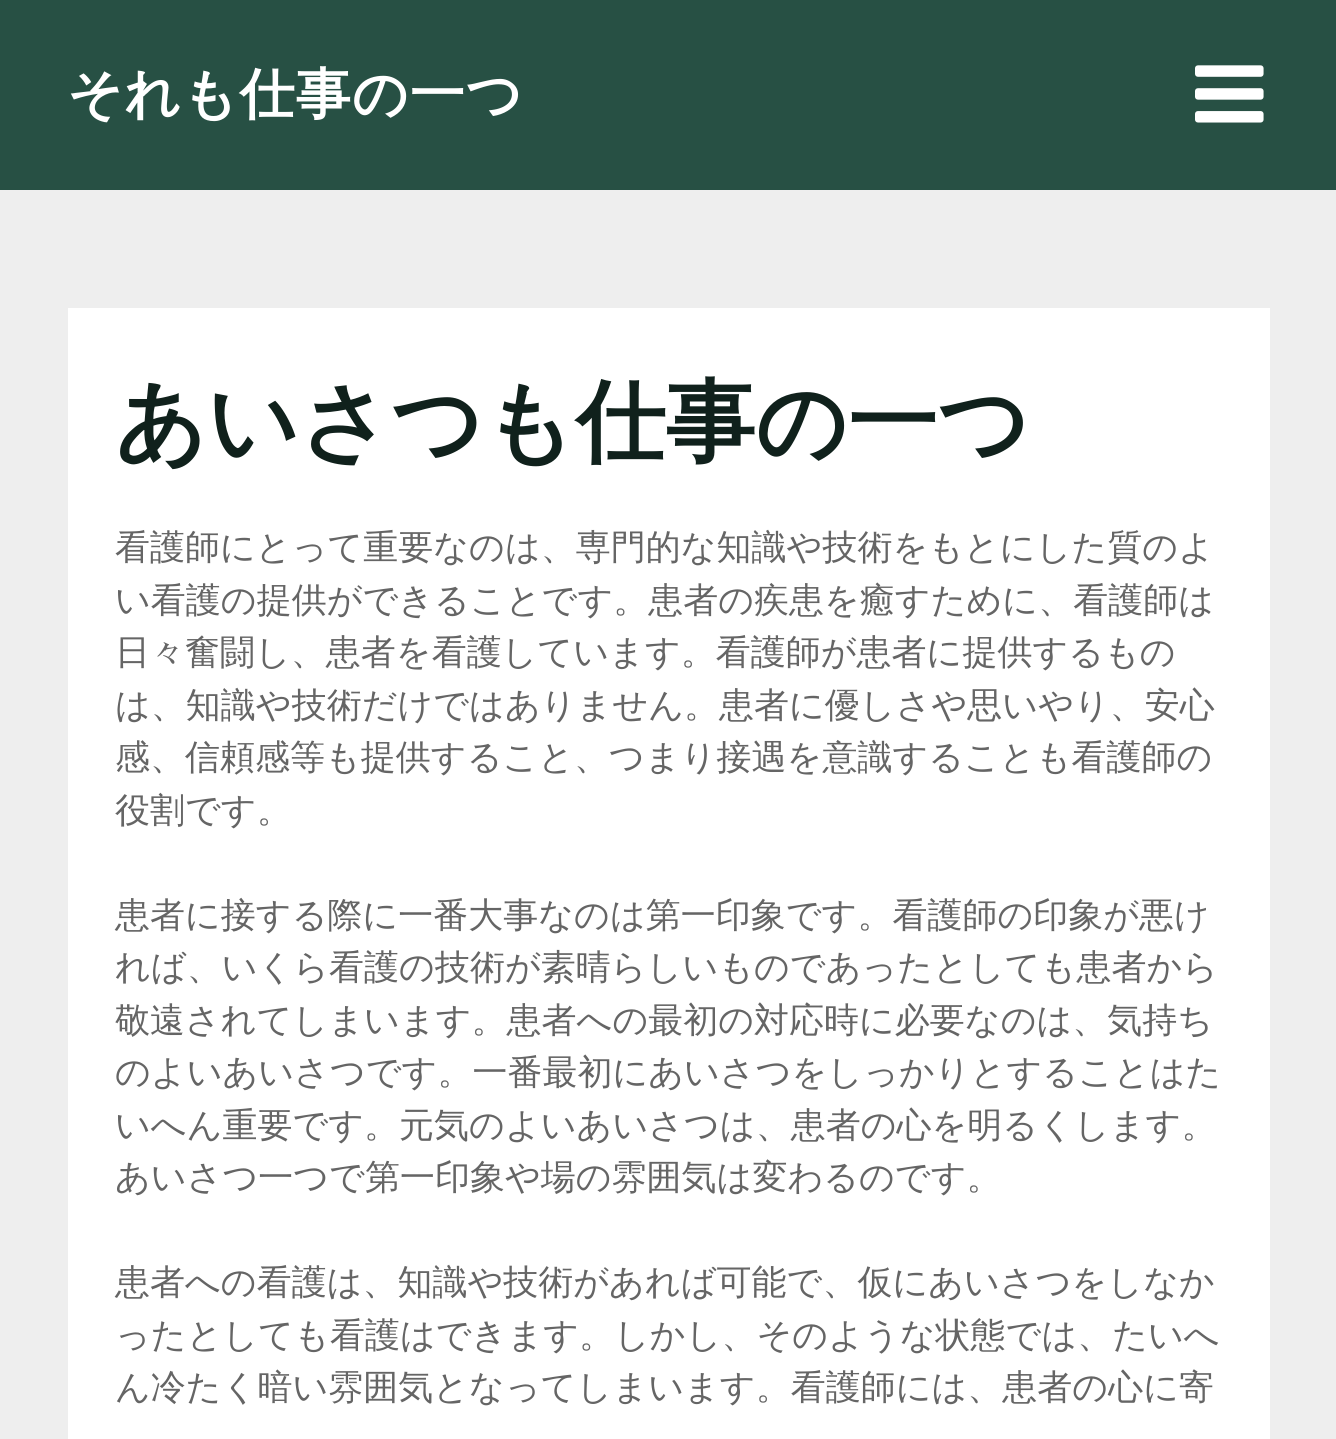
import math
import cairo

surface = cairo.ImageSurface(cairo.FORMAT_RGB24, 1336, 1439)
ctx = cairo.Context(surface)
options = cairo.FontOptions()
options.set_hint_metrics(cairo.HINT_METRICS_OFF)
options.set_hint_style(cairo.HINT_STYLE_NONE)
ctx.set_font_options(options)
ctx.set_miter_limit(4)


def spaced_text(x, y, s, letter, word):
    ctx.move_to(x, y)
    for ch in s:
        ctx.show_text(ch)
        ctx.rel_move_to(letter + word * (ch == ' '), 0)


def picture(path, x, y, w, h):
    ctx.save()
    ctx.set_source_surface(cairo.ImageSurface.create_from_png(path), x, y)
    ctx.rectangle(x, y, w, h)
    ctx.fill()
    ctx.restore()


ctx.set_source_rgb(0.933, 0.933, 0.933)
ctx.paint()
ctx.set_source_rgb(0.153, 0.314, 0.267)
ctx.rectangle(0, 0, 1336, 190)
ctx.fill()
ctx.select_font_face("WenQuanYi Zen Hei", cairo.FONT_SLANT_NORMAL, cairo.FONT_WEIGHT_BOLD)
ctx.set_font_size(55)
ctx.set_source_rgb(1, 1, 1)
spaced_text(67, 113, "それも仕事の一つ", 1.25, 0)
picture("img1.png", 1195, 65, 69, 58)
ctx.rectangle(68, 308, 1202, 1131)
ctx.fill()
ctx.set_font_size(90)
ctx.set_source_rgb(0.063, 0.129, 0.11)
ctx.move_to(115, 453)
ctx.show_text("あいさつも仕事の一つ")
ctx.select_font_face("WenQuanYi Zen Hei Medium")
ctx.set_font_size(35)
ctx.set_source_rgb(0.396, 0.396, 0.396)
ctx.move_to(115, 559)
ctx.show_text("看護師にとって重要なのは、専門的な知識や技術をもとにした質のよ")
ctx.move_to(115, 612)
ctx.show_text("い看護の提供ができることです。患者の疾患を癒すために、看護師は")
ctx.move_to(115, 664)
ctx.show_text("日々奮闘し、患者を看護しています。看護師が患者に提供するもの")
ctx.move_to(115, 717)
ctx.show_text("は、知識や技術だけではありません。患者に優しさや思いやり、安心")
ctx.move_to(115, 769)
ctx.show_text("感、信頼感等も提供すること、つまり接遇を意識することも看護師の")
ctx.move_to(115, 822)
ctx.show_text("役割です。")
ctx.move_to(115, 927)
ctx.show_text("患者に接する際に一番大事なのは第一印象です。看護師の印象が悪け")
ctx.move_to(115, 979)
ctx.show_text("れば、いくら看護の技術が素晴らしいものであったとしても患者から")
ctx.move_to(115, 1032)
ctx.show_text("敬遠されてしまいます。患者への最初の対応時に必要なのは、気持ち")
ctx.move_to(115, 1084)
ctx.show_text("のよいあいさつです。一番最初にあいさつをしっかりとすることはた")
ctx.move_to(115, 1137)
ctx.show_text("いへん重要です。元気のよいあいさつは、患者の心を明るくします。")
ctx.move_to(115, 1189)
ctx.show_text("あいさつ一つで第一印象や場の雰囲気は変わるのです。")
ctx.move_to(115, 1294)
ctx.show_text("患者への看護は、知識や技術があれば可能で、仮にあいさつをしなか")
ctx.move_to(115, 1347)
ctx.show_text("ったとしても看護はできます。しかし、そのような状態では、たいへ")
ctx.move_to(115, 1399)
ctx.show_text("ん冷たく暗い雰囲気となってしまいます。看護師には、患者の心に寄")
surface.write_to_png("page.png")
